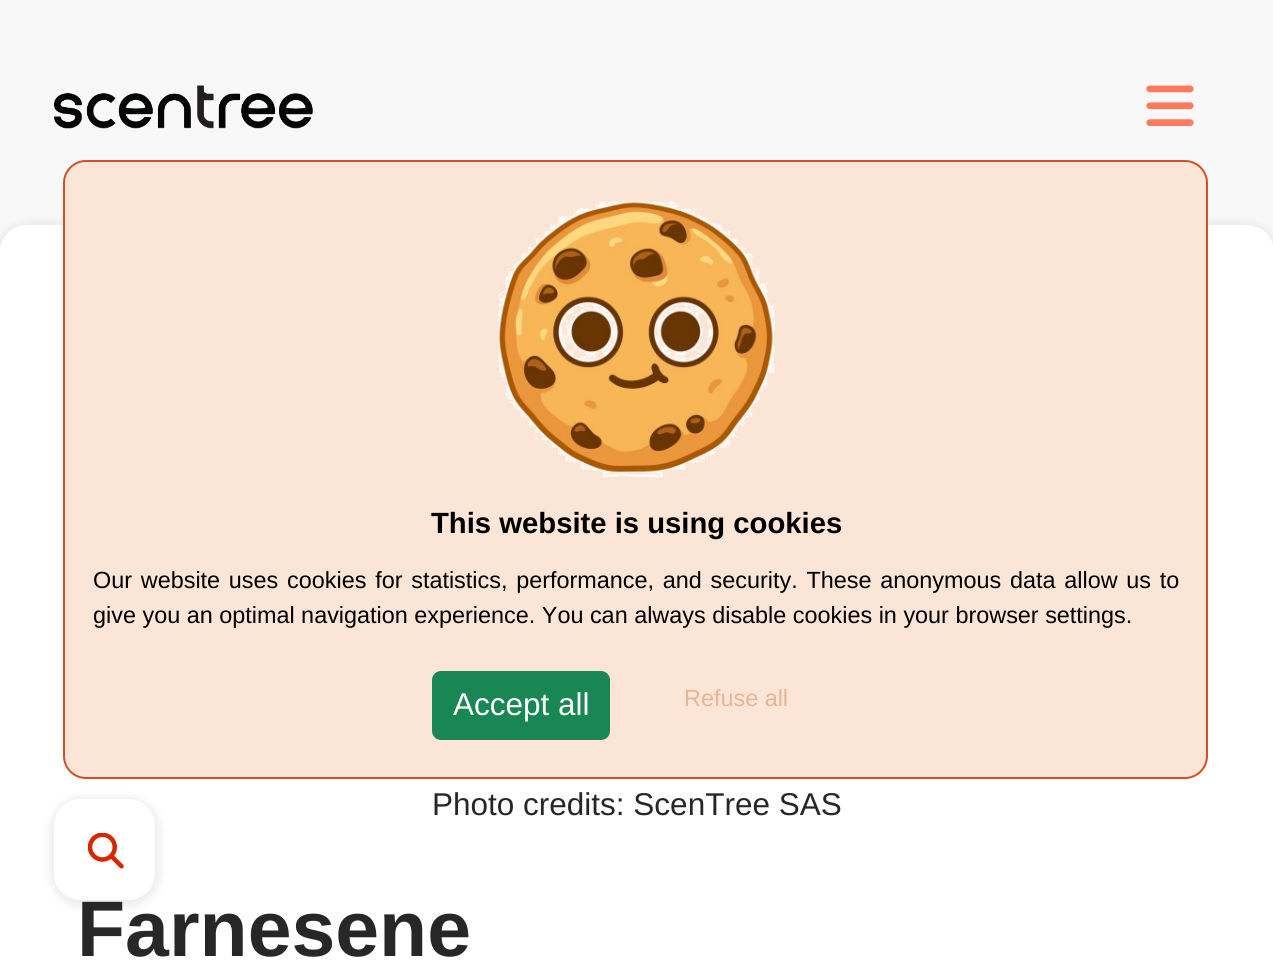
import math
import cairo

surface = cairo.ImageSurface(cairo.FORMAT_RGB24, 1273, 970)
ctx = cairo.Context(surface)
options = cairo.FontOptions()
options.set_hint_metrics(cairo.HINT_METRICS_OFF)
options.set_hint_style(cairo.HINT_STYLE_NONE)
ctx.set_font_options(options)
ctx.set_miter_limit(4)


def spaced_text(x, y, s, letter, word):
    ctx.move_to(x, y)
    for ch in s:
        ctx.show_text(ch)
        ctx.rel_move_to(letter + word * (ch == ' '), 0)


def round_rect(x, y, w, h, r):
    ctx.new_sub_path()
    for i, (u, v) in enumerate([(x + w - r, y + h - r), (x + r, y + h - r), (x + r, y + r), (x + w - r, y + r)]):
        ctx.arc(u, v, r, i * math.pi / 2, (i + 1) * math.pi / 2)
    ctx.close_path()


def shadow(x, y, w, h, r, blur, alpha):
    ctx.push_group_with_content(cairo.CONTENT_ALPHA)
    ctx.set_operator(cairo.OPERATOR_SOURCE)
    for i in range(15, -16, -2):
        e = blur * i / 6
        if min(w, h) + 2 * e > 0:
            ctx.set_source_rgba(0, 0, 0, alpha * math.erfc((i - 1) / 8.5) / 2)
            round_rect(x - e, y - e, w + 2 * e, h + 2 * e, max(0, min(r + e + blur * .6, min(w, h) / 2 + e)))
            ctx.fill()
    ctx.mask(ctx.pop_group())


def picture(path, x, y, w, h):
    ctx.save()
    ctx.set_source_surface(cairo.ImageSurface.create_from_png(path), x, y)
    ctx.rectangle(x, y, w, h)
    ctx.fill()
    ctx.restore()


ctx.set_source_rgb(0.969, 0.969, 0.969)
ctx.paint()
picture("img1.png", 54, 85, 259, 44)
picture("img2.png", 1146, 85, 48, 41)
ctx.set_source_rgb(0.502, 0.502, 0.502)
shadow(-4, 223, 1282, 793, 32, 4.5, 0.15)
ctx.set_source_rgb(1, 1, 1)
ctx.new_path()
ctx.move_to(27, 225)
ctx.line_to(1247, 225)
ctx.curve_to(1262, 225, 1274, 237, 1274, 252)
ctx.line_to(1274, 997)
ctx.line_to(0, 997)
ctx.line_to(0, 252)
ctx.curve_to(0, 237, 12, 225, 27, 225)
ctx.close_path()
ctx.fill()
picture("img3.png", 88, 833, 36, 36)
ctx.save()
ctx.set_fill_rule(cairo.FILL_RULE_EVEN_ODD)
ctx.new_path()
ctx.move_to(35, 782)
ctx.line_to(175, 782)
ctx.line_to(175, 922)
ctx.line_to(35, 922)
ctx.close_path()
ctx.move_to(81, 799)
ctx.line_to(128, 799)
ctx.curve_to(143, 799, 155, 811, 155, 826)
ctx.line_to(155, 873)
ctx.curve_to(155, 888, 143, 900, 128, 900)
ctx.line_to(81, 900)
ctx.curve_to(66, 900, 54, 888, 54, 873)
ctx.line_to(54, 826)
ctx.curve_to(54, 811, 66, 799, 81, 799)
ctx.close_path()
ctx.clip()
ctx.set_source_rgb(0.502, 0.502, 0.502)
shadow(50, 797, 110, 110, 32, 4.5, 0.15)
ctx.restore()
ctx.set_source_rgb(0.984, 0.898, 0.839)
round_rect(64, 161, 1143, 617, 22)
ctx.fill_preserve()
ctx.set_source_rgb(0.839, 0.306, 0.149)
ctx.stroke()
picture("img4.png", 497, 200, 279, 278)
ctx.select_font_face("Liberation Sans", cairo.FONT_SLANT_NORMAL, cairo.FONT_WEIGHT_BOLD)
ctx.set_font_size(29.25)
ctx.set_source_rgb(0, 0, 0)
ctx.move_to(431, 533)
ctx.show_text("This website is using cookies")
ctx.select_font_face("Liberation Sans")
ctx.set_font_size(23.4)
spaced_text(93, 588, "Our website uses cookies for statistics, performance, and security. These anonymous data allow us to", 0, 2.25)
ctx.move_to(93, 623)
ctx.show_text("give you an optimal navigation experience. You can always disable cookies in your browser settings.")
ctx.set_source_rgb(0.098, 0.529, 0.329)
round_rect(433, 672, 176, 67, 8)
ctx.fill_preserve()
ctx.stroke()
ctx.set_font_size(31.5)
ctx.set_source_rgb(1, 1, 1)
ctx.move_to(453, 715)
ctx.show_text("Accept all")
ctx.set_font_size(23.4)
ctx.set_source_rgb(0.902, 0.714, 0.592)
ctx.move_to(684, 706)
ctx.show_text("Refuse all")
ctx.set_font_size(31.5)
ctx.set_source_rgb(0.153, 0.153, 0.153)
ctx.move_to(432, 815)
ctx.show_text("Photo credits: ScenTree SAS")
ctx.select_font_face("Liberation Sans", cairo.FONT_SLANT_NORMAL, cairo.FONT_WEIGHT_BOLD)
ctx.set_font_size(78.75)
ctx.move_to(77, 956)
ctx.show_text("Farnesene")
surface.write_to_png("page.png")
